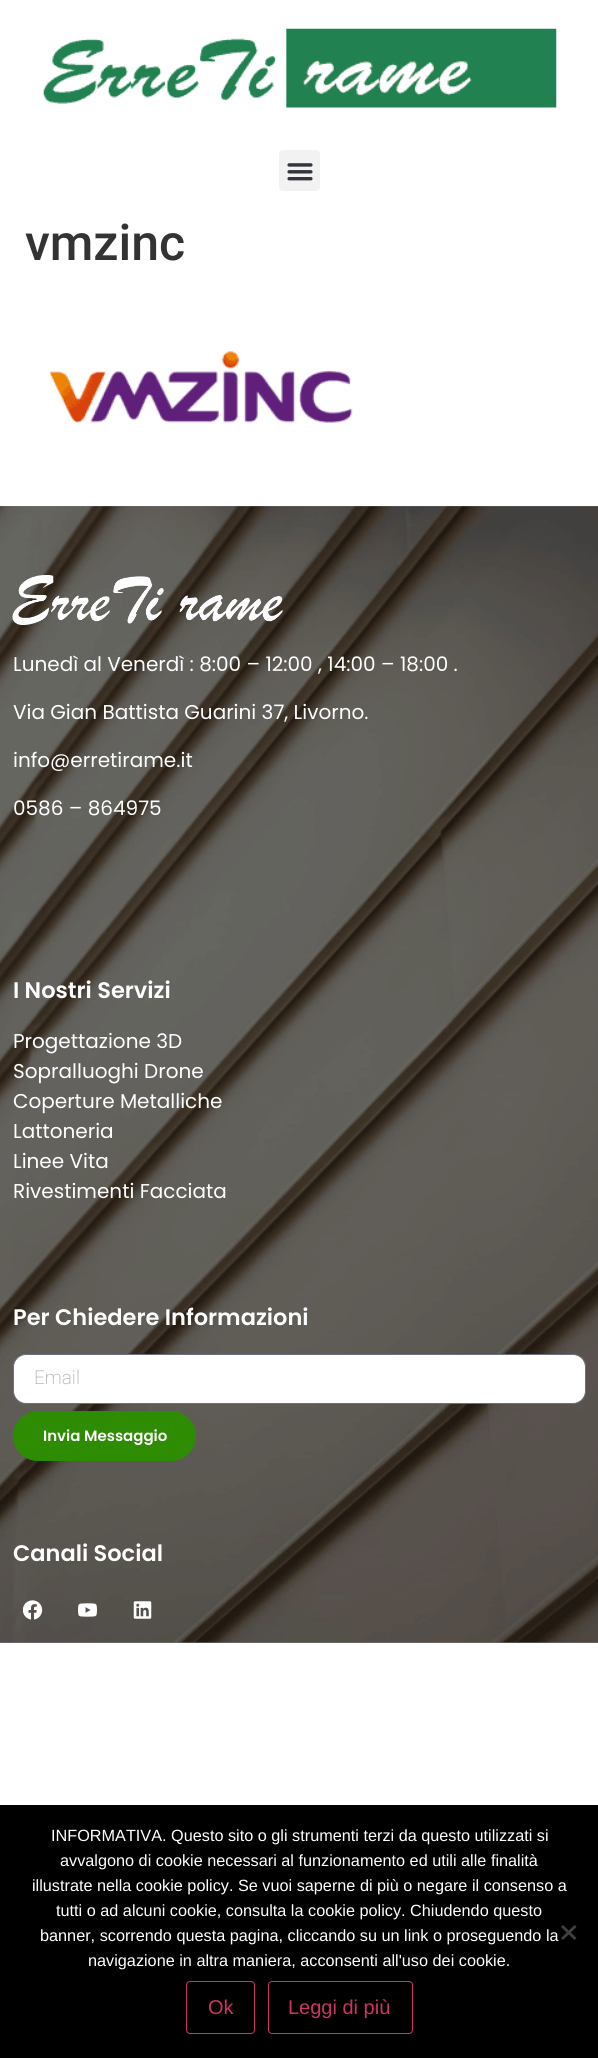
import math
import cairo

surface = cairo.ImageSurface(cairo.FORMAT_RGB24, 598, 2058)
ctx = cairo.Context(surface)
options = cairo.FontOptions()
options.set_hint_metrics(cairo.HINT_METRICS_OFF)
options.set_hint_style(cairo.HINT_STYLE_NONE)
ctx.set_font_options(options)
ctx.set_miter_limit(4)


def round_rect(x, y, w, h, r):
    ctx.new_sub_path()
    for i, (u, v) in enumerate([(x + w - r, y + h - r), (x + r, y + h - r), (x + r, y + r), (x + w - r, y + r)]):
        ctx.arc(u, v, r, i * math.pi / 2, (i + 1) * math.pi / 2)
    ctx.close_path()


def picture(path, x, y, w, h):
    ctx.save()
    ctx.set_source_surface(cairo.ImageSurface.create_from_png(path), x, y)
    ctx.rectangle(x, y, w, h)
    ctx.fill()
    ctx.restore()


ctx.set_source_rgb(1, 1, 1)
ctx.paint()
ctx.set_source_rgb(0.502, 0.502, 0.502)
ctx.rectangle(0, 506, 598, 1137)
ctx.fill()
picture("img1.png", 43, 28, 514, 80)
ctx.set_source_rgb(0.949, 0.949, 0.949)
round_rect(279, 150, 41, 41, 4)
ctx.fill()
picture("img2.png", 287, 163, 26, 18)
ctx.select_font_face("Roboto Medium")
ctx.set_font_size(50)
ctx.set_source_rgb(0.2, 0.2, 0.2)
ctx.move_to(25, 260)
ctx.show_text("vmzinc")
picture("img3.png", 49, 351, 304, 72)
picture("img4.png", 0, 506, 598, 1137)
picture("img5.png", 12, 575, 271, 50)
ctx.select_font_face("Poppins")
ctx.set_font_size(20)
ctx.set_source_rgb(1, 1, 1)
ctx.move_to(13, 671)
ctx.show_text("Lunedì al Venerdì : 8:00 – 12:00 , 14:00 – 18:00 .")
ctx.move_to(13, 719)
ctx.show_text("Via Gian Battista Guarini 37, Livorno.")
ctx.move_to(13, 767)
ctx.show_text("info@erretirame.it")
ctx.move_to(13, 815)
ctx.show_text("0586 – 864975")
ctx.select_font_face("Poppins SemiBold")
ctx.set_font_size(22.5)
ctx.move_to(13, 998)
ctx.show_text("I Nostri Servizi")
ctx.select_font_face("Poppins")
ctx.set_font_size(20)
ctx.move_to(13, 1048)
ctx.show_text("Progettazione 3D")
ctx.move_to(13, 1078)
ctx.show_text("Sopralluoghi Drone")
ctx.move_to(13, 1108)
ctx.show_text("Coperture Metalliche")
ctx.move_to(13, 1138)
ctx.show_text("Lattoneria")
ctx.move_to(13, 1168)
ctx.show_text("Linee Vita")
ctx.move_to(13, 1198)
ctx.show_text("Rivestimenti Facciata")
ctx.select_font_face("Poppins SemiBold")
ctx.set_font_size(22.5)
ctx.move_to(13, 1325)
ctx.show_text("Per Chiedere Informazioni")
round_rect(13.5, 1354.5, 572, 49, 12.5)
ctx.fill_preserve()
ctx.set_source_rgb(0.412, 0.447, 0.49)
ctx.set_line_width(1)
ctx.stroke()
ctx.select_font_face("Roboto ExtraLight")
ctx.set_font_size(19)
ctx.set_source_rgb(0.686, 0.686, 0.686)
ctx.move_to(34, 1384)
ctx.show_text("Email")
ctx.set_source_rgb(0.18, 0.549, 0.012)
round_rect(13, 1411, 183, 50, 25)
ctx.fill()
ctx.select_font_face("Poppins SemiBold")
ctx.set_font_size(15)
ctx.set_source_rgb(1, 1, 1)
ctx.move_to(43, 1441)
ctx.show_text("Invia Messaggio")
ctx.set_font_size(22.5)
ctx.move_to(13, 1561)
ctx.show_text("Canali Social")
picture("img6.png", 23, 1600, 20, 20)
picture("img7.png", 78, 1603, 19, 14)
picture("img8.png", 133, 1601, 19, 18)
ctx.set_source_rgb(0, 0, 0)
ctx.rectangle(0, 1805, 598, 253)
ctx.fill()
ctx.select_font_face("Liberation Sans")
ctx.set_font_size(16.25)
ctx.set_source_rgb(1, 1, 1)
ctx.move_to(51, 1841)
ctx.show_text("INFORMATIVA. Questo sito o gli strumenti terzi da questo utilizzati si")
ctx.move_to(60, 1866)
ctx.show_text("avvalgono di cookie necessari al funzionamento ed utili alle finalità")
ctx.move_to(32, 1891)
ctx.show_text("illustrate nella cookie policy. Se vuoi saperne di più o negare il consenso a")
ctx.move_to(56, 1916)
ctx.show_text("tutti o ad alcuni cookie, consulta la cookie policy. Chiudendo questo")
ctx.move_to(40, 1941)
ctx.show_text("banner, scorrendo questa pagina, cliccando su un link o proseguendo la")
ctx.move_to(88, 1966)
ctx.show_text("navigazione in altra maniera, acconsenti all'uso dei cookie.")
ctx.set_source_rgb(0.251, 0.251, 0.251)
ctx.new_path()
ctx.move_to(574.5, 1925)
ctx.line_to(576.5, 1927)
ctx.line_to(563, 1940)
ctx.line_to(561, 1938)
ctx.close_path()
ctx.fill()
ctx.new_path()
ctx.move_to(561, 1927)
ctx.line_to(563, 1925)
ctx.line_to(576.5, 1938)
ctx.line_to(574.5, 1940)
ctx.close_path()
ctx.fill()
round_rect(186.5, 1981.5, 68, 52, 3.5)
ctx.set_source_rgb(0.8, 0.2, 0.4)
ctx.stroke()
ctx.set_font_size(20)
ctx.move_to(208, 2014)
ctx.show_text("Ok")
round_rect(268.5, 1981.5, 144, 52, 3.5)
ctx.stroke()
ctx.move_to(288, 2014)
ctx.show_text("Leggi di più")
surface.write_to_png("page.png")
